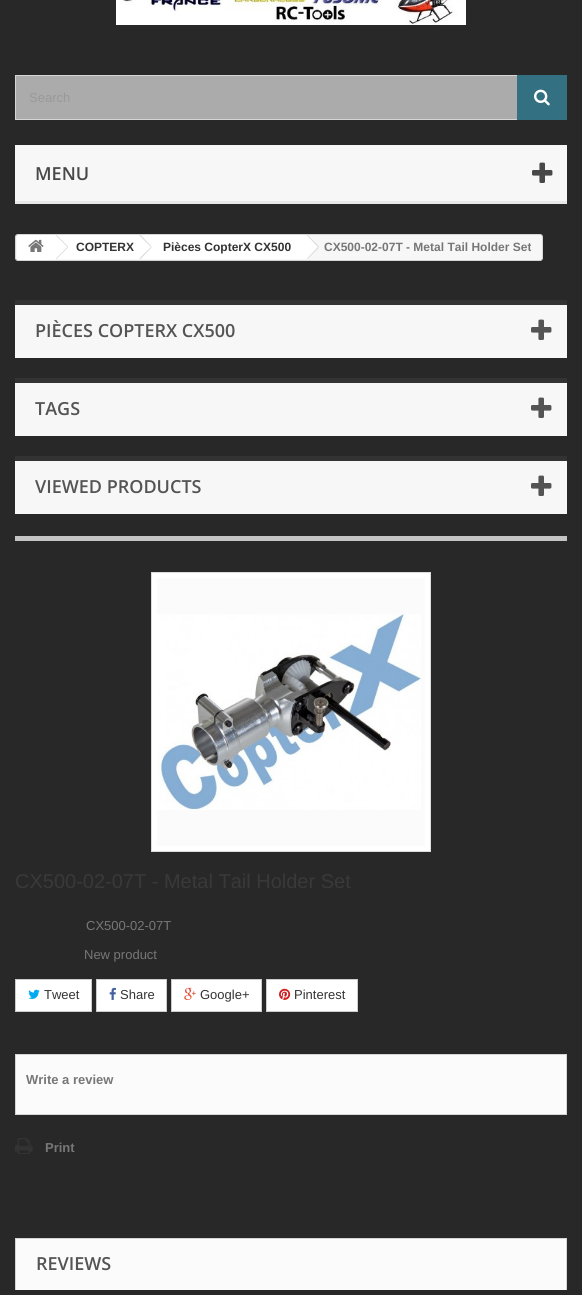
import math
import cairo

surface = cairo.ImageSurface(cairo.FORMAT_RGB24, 582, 1295)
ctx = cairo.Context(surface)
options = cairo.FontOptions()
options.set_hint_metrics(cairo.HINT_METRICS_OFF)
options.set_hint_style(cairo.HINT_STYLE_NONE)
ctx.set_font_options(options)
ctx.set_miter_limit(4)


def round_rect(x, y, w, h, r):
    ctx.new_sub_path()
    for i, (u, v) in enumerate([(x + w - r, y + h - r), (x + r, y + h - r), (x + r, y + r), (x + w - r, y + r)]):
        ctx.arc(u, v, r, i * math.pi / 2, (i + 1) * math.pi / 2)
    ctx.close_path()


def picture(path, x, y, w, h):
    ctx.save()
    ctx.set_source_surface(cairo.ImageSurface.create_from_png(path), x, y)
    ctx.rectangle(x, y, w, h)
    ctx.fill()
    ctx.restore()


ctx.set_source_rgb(0.157, 0.157, 0.157)
ctx.paint()
picture("img1.png", 116, 0, 350, 25)
ctx.set_source_rgb(0.671, 0.671, 0.671)
ctx.rectangle(16, 76, 501, 43)
ctx.fill()
ctx.rectangle(15.5, 75.5, 551, 44)
ctx.set_source_rgb(0.839, 0.831, 0.831)
ctx.set_line_width(1)
ctx.stroke()
ctx.select_font_face("Liberation Sans")
ctx.set_font_size(13)
ctx.set_source_rgb(0.6, 0.6, 0.6)
ctx.move_to(29, 102)
ctx.show_text("Search")
ctx.set_source_rgb(0.196, 0.439, 0.51)
ctx.rectangle(517, 75, 50, 45)
ctx.fill()
picture("img2.png", 534, 89, 16, 17)
ctx.set_source_rgb(0.965, 0.965, 0.965)
ctx.rectangle(15, 145, 552, 56)
ctx.fill()
ctx.set_source_rgb(0.914, 0.914, 0.914)
ctx.rectangle(15, 201, 552, 3)
ctx.fill()
ctx.select_font_face("Open Sans SemiBold")
ctx.set_font_size(18)
ctx.set_source_rgb(0.282, 0.282, 0.282)
ctx.move_to(35, 180)
ctx.show_text("MENU")
picture("img3.png", 532, 162, 21, 21)
ctx.set_source_rgb(0.965, 0.965, 0.965)
round_rect(15.5, 234.5, 527, 26, 2.5)
ctx.fill_preserve()
ctx.set_source_rgb(0.839, 0.831, 0.831)
ctx.stroke()
ctx.set_source_rgb(1, 1, 1)
ctx.new_path()
ctx.move_to(20, 235)
ctx.line_to(55, 235)
ctx.line_to(55, 260)
ctx.line_to(20, 260)
ctx.curve_to(18.5, 260, 17, 258.5, 17, 257)
ctx.line_to(17, 238)
ctx.curve_to(17, 236.5, 18.5, 235, 20, 235)
ctx.close_path()
ctx.fill()
picture("img4.png", 28, 239, 16, 13)
ctx.rectangle(55, 235, 86, 24)
ctx.fill()
ctx.set_source_rgb(0.839, 0.831, 0.831)
ctx.new_path()
ctx.move_to(56.5, 235)
ctx.line_to(68, 246.5)
ctx.line_to(67.5, 247)
ctx.line_to(56, 235.5)
ctx.close_path()
ctx.move_to(67.5, 247)
ctx.line_to(68, 247.5)
ctx.line_to(56.5, 259)
ctx.line_to(56, 258.5)
ctx.close_path()
ctx.fill()
ctx.select_font_face("Liberation Sans", cairo.FONT_SLANT_NORMAL, cairo.FONT_WEIGHT_BOLD)
ctx.set_font_size(12)
ctx.set_source_rgb(0.2, 0.2, 0.2)
ctx.move_to(76, 251)
ctx.show_text("COPTERX")
ctx.set_source_rgb(1, 1, 1)
ctx.new_path()
ctx.move_to(151, 235.5)
ctx.line_to(161, 245.5)
ctx.curve_to(162, 246.5, 162, 247.5, 161, 248.5)
ctx.line_to(151, 258.5)
ctx.curve_to(150.5, 259, 149, 259, 148.5, 258.5)
ctx.line_to(138.5, 248.5)
ctx.curve_to(137.5, 247.5, 137.5, 246.5, 138.5, 245.5)
ctx.line_to(148.5, 235.5)
ctx.curve_to(149, 235, 150.5, 235, 151, 235.5)
ctx.close_path()
ctx.fill()
ctx.rectangle(141, 235, 165, 24)
ctx.fill()
ctx.set_source_rgb(0.839, 0.831, 0.831)
ctx.new_path()
ctx.move_to(140.5, 235)
ctx.line_to(151.5, 246.5)
ctx.line_to(151, 247)
ctx.line_to(139.5, 235.5)
ctx.close_path()
ctx.move_to(151, 247)
ctx.line_to(151.5, 247.5)
ctx.line_to(140.5, 259)
ctx.line_to(139.5, 258.5)
ctx.close_path()
ctx.fill()
ctx.set_source_rgb(0.2, 0.2, 0.2)
ctx.move_to(163, 251)
ctx.show_text("Pièces CopterX CX500")
ctx.set_source_rgb(1, 1, 1)
ctx.new_path()
ctx.move_to(308, 235.5)
ctx.line_to(318, 245.5)
ctx.curve_to(319, 246.5, 319, 247.5, 318, 248.5)
ctx.line_to(308, 258.5)
ctx.curve_to(307.5, 259, 306, 259, 305.5, 258.5)
ctx.line_to(295.5, 248.5)
ctx.curve_to(294.5, 247.5, 294.5, 246.5, 295.5, 245.5)
ctx.line_to(305.5, 235.5)
ctx.curve_to(306, 235, 307.5, 235, 308, 235.5)
ctx.close_path()
ctx.fill()
ctx.set_source_rgb(0.839, 0.831, 0.831)
ctx.new_path()
ctx.move_to(307.5, 235)
ctx.line_to(319, 246.5)
ctx.line_to(318, 247)
ctx.line_to(307, 235.5)
ctx.close_path()
ctx.move_to(318, 247)
ctx.line_to(319, 247.5)
ctx.line_to(307.5, 259)
ctx.line_to(307, 258.5)
ctx.close_path()
ctx.fill()
ctx.set_source_rgb(0.467, 0.467, 0.467)
ctx.move_to(324, 251)
ctx.show_text("CX500-02-07T - Metal Tail Holder Set")
ctx.set_source_rgb(0.965, 0.965, 0.965)
ctx.rectangle(15, 305, 552, 53)
ctx.fill()
ctx.set_source_rgb(0.2, 0.2, 0.2)
ctx.rectangle(15, 300, 552, 5)
ctx.fill()
ctx.select_font_face("Open Sans SemiBold")
ctx.set_font_size(18)
ctx.set_source_rgb(0.333, 0.329, 0.329)
ctx.move_to(35, 337)
ctx.show_text("PIÈCES COPTERX CX500")
picture("img5.png", 531, 319, 21, 21)
ctx.set_source_rgb(0.965, 0.965, 0.965)
ctx.rectangle(15, 383, 552, 53)
ctx.fill()
ctx.set_source_rgb(0.2, 0.2, 0.2)
ctx.rectangle(15, 378, 552, 5)
ctx.fill()
ctx.set_source_rgb(0.333, 0.329, 0.329)
ctx.move_to(35, 415)
ctx.show_text("TAGS")
picture("img5.png", 531, 397, 21, 21)
ctx.set_source_rgb(0.965, 0.965, 0.965)
ctx.rectangle(15, 461, 552, 53)
ctx.fill()
ctx.set_source_rgb(0.2, 0.2, 0.2)
ctx.rectangle(15, 456, 552, 5)
ctx.fill()
ctx.set_source_rgb(0.333, 0.329, 0.329)
ctx.move_to(35, 493)
ctx.show_text("VIEWED PRODUCTS")
picture("img5.png", 531, 475, 21, 21)
ctx.set_source_rgb(0.769, 0.769, 0.769)
ctx.rectangle(15, 536, 552, 5)
ctx.fill()
ctx.set_source_rgb(1, 1, 1)
ctx.rectangle(151.5, 572.5, 279, 279)
ctx.fill_preserve()
ctx.set_source_rgb(0.859, 0.859, 0.859)
ctx.stroke()
ctx.set_source_rgb(0.984, 0.984, 0.984)
ctx.rectangle(157, 578, 268, 268)
ctx.fill()
picture("img6.png", 157, 614, 264, 196)
ctx.select_font_face("Liberation Sans")
ctx.set_font_size(20)
ctx.set_source_rgb(0.227, 0.224, 0.224)
ctx.move_to(15, 888)
ctx.show_text("CX500-02-07T - Metal Tail Holder Set")
ctx.set_font_size(13)
ctx.set_source_rgb(0.467, 0.467, 0.467)
ctx.move_to(86, 930)
ctx.show_text("CX500-02-07T")
ctx.move_to(84, 959)
ctx.show_text("New product")
ctx.set_source_rgb(1, 1, 1)
ctx.rectangle(15.5, 979.5, 76, 32)
ctx.fill_preserve()
ctx.set_source_rgb(0.8, 0.8, 0.8)
ctx.stroke()
picture("img7.png", 28, 989, 12, 10)
ctx.set_source_rgb(0.2, 0.2, 0.2)
ctx.move_to(44, 999)
ctx.show_text("Tweet")
ctx.set_source_rgb(1, 1, 1)
ctx.rectangle(96.5, 979.5, 70, 32)
ctx.fill_preserve()
ctx.set_source_rgb(0.8, 0.8, 0.8)
ctx.stroke()
picture("img8.png", 109, 987, 7, 13)
ctx.set_source_rgb(0.2, 0.2, 0.2)
ctx.move_to(120, 999)
ctx.show_text("Share")
ctx.set_source_rgb(1, 1, 1)
ctx.rectangle(171.5, 979.5, 90, 32)
ctx.fill_preserve()
ctx.set_source_rgb(0.8, 0.8, 0.8)
ctx.stroke()
picture("img9.png", 184, 987, 12, 13)
ctx.set_source_rgb(0.2, 0.2, 0.2)
ctx.move_to(200, 999)
ctx.show_text("Google+")
ctx.set_source_rgb(1, 1, 1)
ctx.rectangle(266.5, 979.5, 91, 32)
ctx.fill_preserve()
ctx.set_source_rgb(0.8, 0.8, 0.8)
ctx.stroke()
picture("img10.png", 279, 988, 12, 12)
ctx.set_source_rgb(0.2, 0.2, 0.2)
ctx.move_to(294, 999)
ctx.show_text("Pinterest")
ctx.set_source_rgb(0.984, 0.984, 0.984)
ctx.rectangle(15.5, 1054.5, 551, 60)
ctx.fill_preserve()
ctx.set_source_rgb(0.839, 0.831, 0.831)
ctx.stroke()
ctx.select_font_face("Liberation Sans", cairo.FONT_SLANT_NORMAL, cairo.FONT_WEIGHT_BOLD)
ctx.set_source_rgb(0.467, 0.467, 0.467)
ctx.move_to(26, 1084)
ctx.show_text("Write a review")
picture("img11.png", 15, 1138, 18, 16)
ctx.move_to(45, 1152)
ctx.show_text("Print")
ctx.set_source_rgb(0.984, 0.984, 0.984)
ctx.rectangle(16, 1239, 550, 51)
ctx.fill()
ctx.set_source_rgb(0.839, 0.831, 0.831)
ctx.rectangle(15, 1238, 552, 1)
ctx.fill()
ctx.rectangle(566, 1238, 1, 52)
ctx.fill()
ctx.rectangle(15, 1238, 1, 52)
ctx.fill()
ctx.select_font_face("Open Sans SemiBold")
ctx.set_font_size(18)
ctx.set_source_rgb(0.333, 0.329, 0.329)
ctx.move_to(36, 1270)
ctx.show_text("REVIEWS")
surface.write_to_png("page.png")
